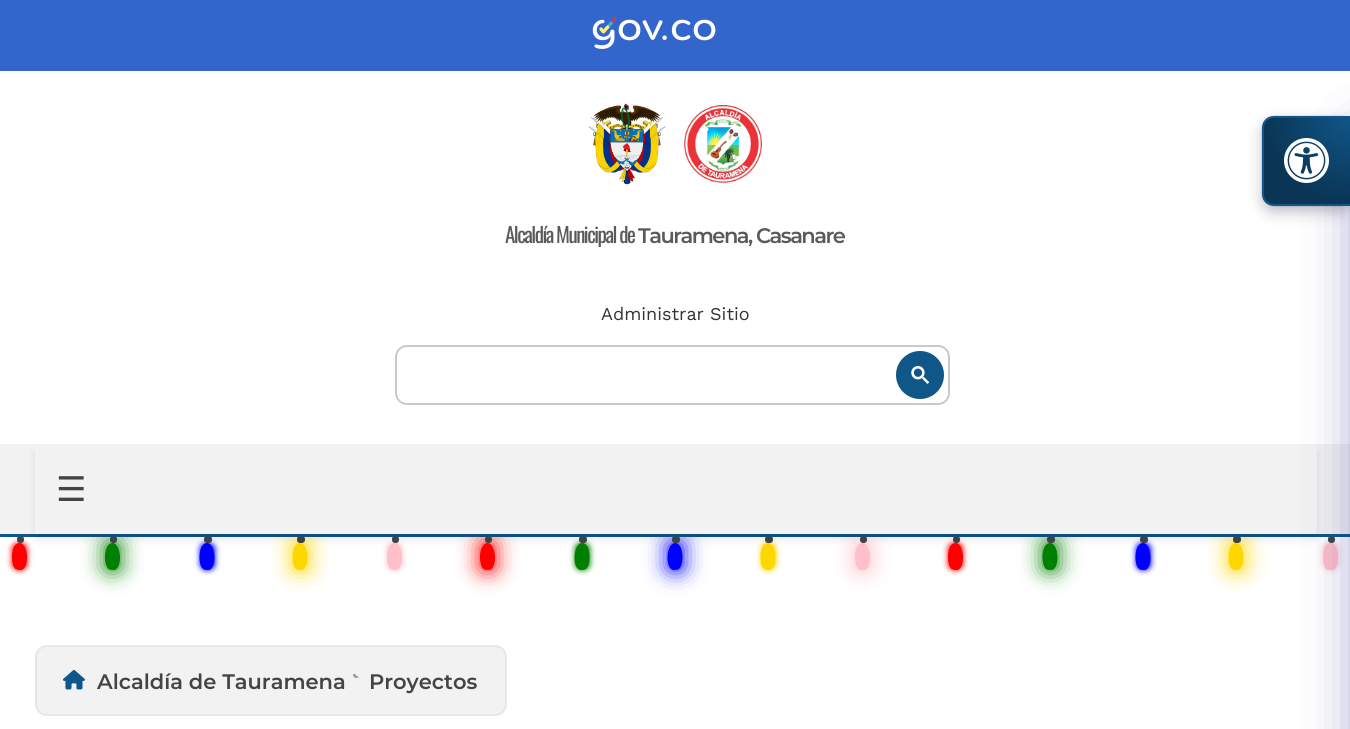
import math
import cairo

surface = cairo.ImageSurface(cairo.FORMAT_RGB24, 1350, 729)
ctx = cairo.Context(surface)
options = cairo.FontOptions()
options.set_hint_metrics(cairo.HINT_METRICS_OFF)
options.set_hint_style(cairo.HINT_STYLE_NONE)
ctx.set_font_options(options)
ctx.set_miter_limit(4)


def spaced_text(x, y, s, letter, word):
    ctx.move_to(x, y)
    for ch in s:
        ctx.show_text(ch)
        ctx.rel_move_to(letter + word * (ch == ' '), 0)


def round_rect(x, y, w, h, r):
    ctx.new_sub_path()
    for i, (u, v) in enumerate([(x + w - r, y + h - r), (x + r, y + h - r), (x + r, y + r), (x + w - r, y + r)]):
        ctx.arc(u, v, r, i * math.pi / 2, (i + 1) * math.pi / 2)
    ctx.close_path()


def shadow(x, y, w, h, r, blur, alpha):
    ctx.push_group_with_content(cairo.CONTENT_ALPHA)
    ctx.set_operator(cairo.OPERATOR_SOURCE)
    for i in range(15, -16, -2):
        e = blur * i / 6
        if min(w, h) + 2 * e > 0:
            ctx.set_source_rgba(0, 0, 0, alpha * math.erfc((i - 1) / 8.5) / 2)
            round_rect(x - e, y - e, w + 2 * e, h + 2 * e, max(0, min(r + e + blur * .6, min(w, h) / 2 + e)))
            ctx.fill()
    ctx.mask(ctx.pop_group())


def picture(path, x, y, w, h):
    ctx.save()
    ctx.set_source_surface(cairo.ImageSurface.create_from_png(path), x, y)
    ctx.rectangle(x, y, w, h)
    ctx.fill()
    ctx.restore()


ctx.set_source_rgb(1, 1, 1)
ctx.paint()
ctx.set_source_rgb(0.2, 0.4, 0.8)
ctx.rectangle(0, 0, 1350, 71)
ctx.fill()
picture("img1.png", 592, 17, 124, 32)
picture("img2.png", 588, 103, 78, 82)
picture("img3.png", 684, 105, 78, 78)
ctx.select_font_face("Oswald")
ctx.set_font_size(21)
ctx.set_source_rgb(0.353, 0.353, 0.353)
spaced_text(505, 243, "Alcaldía Municipal de", -1.5, 0)
ctx.select_font_face("Montserrat SemiBold")
spaced_text(638, 243, "Tauramena, Casanare", -1.5, 0)
ctx.select_font_face("Work Sans")
ctx.set_font_size(18)
ctx.set_source_rgb(0.2, 0.2, 0.2)
ctx.move_to(601, 320)
ctx.show_text("Administrar Sitio")
round_rect(396, 346, 553, 58, 11)
ctx.set_source_rgb(0.788, 0.788, 0.788)
ctx.stroke()
ctx.set_source_rgb(0.063, 0.337, 0.537)
ctx.arc(920, 375, 24, 0, 2 * math.pi)
ctx.fill()
picture("img4.png", 911, 366, 19, 18)
ctx.set_source_rgb(1, 0, 0)
shadow(12, 543, 15, 27, 7.5, 3, 1)
ctx.set_source_rgb(0, 0.502, 0)
shadow(105, 543, 15, 27, 7.5, 11, 1)
ctx.set_source_rgb(0, 0, 1)
shadow(200, 543, 15, 27, 7.5, 3, 1)
ctx.set_source_rgb(1, 0.843, 0)
shadow(293, 543, 15, 27, 7.5, 11, 1)
ctx.set_source_rgb(1, 0.753, 0.796)
shadow(387, 543, 15, 27, 7.5, 3, 1)
ctx.set_source_rgb(1, 0, 0)
shadow(480, 543, 15, 27, 7.5, 11, 1)
ctx.set_source_rgb(0, 0.502, 0)
shadow(575, 543, 15, 27, 7.5, 3, 1)
ctx.set_source_rgb(0, 0, 1)
shadow(668, 543, 15, 27, 7.5, 11, 1)
ctx.set_source_rgb(1, 0.843, 0)
shadow(761, 543, 15, 27, 7.5, 3, 1)
ctx.set_source_rgb(1, 0.753, 0.796)
shadow(855, 543, 15, 27, 7.5, 11, 1)
ctx.set_source_rgb(1, 0, 0)
shadow(948, 543, 15, 27, 7.5, 3, 1)
ctx.set_source_rgb(0, 0.502, 0)
shadow(1043, 543, 15, 27, 7.5, 11, 1)
ctx.set_source_rgb(0, 0, 1)
shadow(1136, 543, 15, 27, 7.5, 3, 1)
ctx.set_source_rgb(1, 0.843, 0)
shadow(1229, 543, 15, 27, 7.5, 11, 1)
ctx.set_source_rgb(1, 0.753, 0.796)
shadow(1323, 543, 15, 27, 7.5, 3, 1)
ctx.set_source_rgb(0.949, 0.949, 0.949)
ctx.rectangle(0, 444, 1350, 90)
ctx.fill()
ctx.set_source_rgb(0.267, 0.267, 0.267)
round_rect(17, 536, 7, 7, 3)
ctx.fill()
round_rect(110, 536, 7, 7, 3)
ctx.fill()
round_rect(204, 536, 8, 7, 3)
ctx.fill()
round_rect(297, 536, 8, 7, 3)
ctx.fill()
round_rect(392, 536, 7, 7, 3)
ctx.fill()
round_rect(485, 536, 7, 7, 3)
ctx.fill()
round_rect(579, 536, 8, 7, 3)
ctx.fill()
round_rect(672, 536, 8, 7, 3)
ctx.fill()
round_rect(765, 536, 8, 7, 3)
ctx.fill()
round_rect(860, 536, 7, 7, 3)
ctx.fill()
round_rect(953, 536, 7, 7, 3)
ctx.fill()
round_rect(1047, 536, 8, 7, 3)
ctx.fill()
round_rect(1140, 536, 8, 7, 3)
ctx.fill()
round_rect(1233, 536, 8, 7, 3)
ctx.fill()
round_rect(1328, 536, 7, 7, 3)
ctx.fill()
ctx.set_source_rgb(0.063, 0.337, 0.537)
ctx.rectangle(0, 534, 1350, 3)
ctx.fill()
ctx.set_source_rgb(1, 0, 0)
ctx.new_path()
ctx.move_to(19.5, 543)
ctx.curve_to(28.5, 543, 30, 569, 21, 570)
ctx.curve_to(19.5, 570, 17, 570, 15.5, 569)
ctx.curve_to(10, 564.5, 10.5, 543, 19.5, 543)
ctx.close_path()
ctx.fill()
ctx.set_source_rgb(0, 0.502, 0)
ctx.new_path()
ctx.move_to(112.5, 543)
ctx.curve_to(121.5, 543, 123, 569, 114, 570)
ctx.curve_to(112.5, 570, 110, 570, 108.5, 569)
ctx.curve_to(103, 564.5, 103.5, 543, 112.5, 543)
ctx.close_path()
ctx.fill()
ctx.set_source_rgb(0, 0, 1)
ctx.new_path()
ctx.move_to(207, 543)
ctx.curve_to(216, 543, 217.5, 569, 208.5, 570)
ctx.curve_to(207, 570, 204.5, 570, 203, 569)
ctx.curve_to(197.5, 564.5, 198, 543, 207, 543)
ctx.close_path()
ctx.fill()
ctx.set_source_rgb(1, 0.843, 0)
ctx.new_path()
ctx.move_to(300, 543)
ctx.curve_to(309, 543, 310.5, 569, 301.5, 570)
ctx.curve_to(300, 570, 297.5, 570, 296, 569)
ctx.curve_to(290.5, 564.5, 291, 543, 300, 543)
ctx.close_path()
ctx.fill()
ctx.set_source_rgb(1, 0.753, 0.796)
ctx.new_path()
ctx.move_to(394.5, 543)
ctx.curve_to(403.5, 543, 405, 569, 396, 570)
ctx.curve_to(394.5, 570, 392, 570, 390.5, 569)
ctx.curve_to(385, 564.5, 385.5, 543, 394.5, 543)
ctx.close_path()
ctx.fill()
ctx.set_source_rgb(1, 0, 0)
ctx.new_path()
ctx.move_to(487.5, 543)
ctx.curve_to(496.5, 543, 498, 569, 489, 570)
ctx.curve_to(487.5, 570, 485, 570, 483.5, 569)
ctx.curve_to(478, 564.5, 478.5, 543, 487.5, 543)
ctx.close_path()
ctx.fill()
ctx.set_source_rgb(0, 0.502, 0)
ctx.new_path()
ctx.move_to(582, 543)
ctx.curve_to(591, 543, 591.5, 564.5, 586, 569)
ctx.curve_to(584.5, 570, 582, 570, 580.5, 570)
ctx.curve_to(571.5, 569, 573, 543, 582, 543)
ctx.close_path()
ctx.fill()
ctx.set_source_rgb(0, 0, 1)
ctx.new_path()
ctx.move_to(675, 543)
ctx.curve_to(684, 543, 684.5, 564.5, 679, 569)
ctx.curve_to(677.5, 570, 675, 570, 673.5, 570)
ctx.curve_to(664.5, 569, 666, 543, 675, 543)
ctx.close_path()
ctx.fill()
ctx.set_source_rgb(1, 0.843, 0)
ctx.new_path()
ctx.move_to(768, 543)
ctx.curve_to(777, 543, 778.5, 569, 769.5, 570)
ctx.curve_to(768, 570, 765.5, 570, 764, 569)
ctx.curve_to(758.5, 564.5, 759, 543, 768, 543)
ctx.close_path()
ctx.fill()
ctx.set_source_rgb(1, 0.753, 0.796)
ctx.new_path()
ctx.move_to(862.5, 543)
ctx.curve_to(871.5, 543, 873, 569, 864, 570)
ctx.curve_to(862.5, 570, 860, 570, 858.5, 569)
ctx.curve_to(853, 564.5, 853.5, 543, 862.5, 543)
ctx.close_path()
ctx.fill()
ctx.set_source_rgb(1, 0, 0)
ctx.new_path()
ctx.move_to(955.5, 543)
ctx.curve_to(964.5, 543, 966, 569, 957, 570)
ctx.curve_to(955.5, 570, 953, 570, 951.5, 569)
ctx.curve_to(946, 564.5, 946.5, 543, 955.5, 543)
ctx.close_path()
ctx.fill()
ctx.set_source_rgb(0, 0.502, 0)
ctx.new_path()
ctx.move_to(1050, 543)
ctx.curve_to(1059, 543, 1060.5, 569, 1051.5, 570)
ctx.curve_to(1050, 570, 1047.5, 570, 1046, 569)
ctx.curve_to(1040.5, 564.5, 1041, 543, 1050, 543)
ctx.close_path()
ctx.fill()
ctx.set_source_rgb(0, 0, 1)
ctx.new_path()
ctx.move_to(1143, 543)
ctx.curve_to(1152, 543, 1153.5, 569, 1144.5, 570)
ctx.curve_to(1143, 570, 1140.5, 570, 1139, 569)
ctx.curve_to(1133.5, 564.5, 1134, 543, 1143, 543)
ctx.close_path()
ctx.fill()
ctx.set_source_rgb(1, 0.843, 0)
ctx.new_path()
ctx.move_to(1236, 543)
ctx.curve_to(1245, 543, 1246.5, 569, 1237.5, 570)
ctx.curve_to(1236, 570, 1233.5, 570, 1232, 569)
ctx.curve_to(1226.5, 564.5, 1227, 543, 1236, 543)
ctx.close_path()
ctx.fill()
ctx.set_source_rgb(1, 0.753, 0.796)
ctx.new_path()
ctx.move_to(1330.5, 543)
ctx.curve_to(1339.5, 543, 1341, 569, 1332, 570)
ctx.curve_to(1330.5, 570, 1328, 570, 1326.5, 569)
ctx.curve_to(1321, 564.5, 1321.5, 543, 1330.5, 543)
ctx.close_path()
ctx.fill()
ctx.save()
ctx.set_fill_rule(cairo.FILL_RULE_EVEN_ODD)
ctx.new_path()
ctx.move_to(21, 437)
ctx.line_to(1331, 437)
ctx.line_to(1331, 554)
ctx.line_to(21, 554)
ctx.close_path()
ctx.move_to(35, 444)
ctx.line_to(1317, 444)
ctx.line_to(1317, 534)
ctx.line_to(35, 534)
ctx.close_path()
ctx.clip()
ctx.set_source_rgb(0, 0, 0)
shadow(36, 452, 1280, 87, 0, 4.5, 0.1)
ctx.restore()
ctx.select_font_face("DejaVu Sans")
ctx.set_font_size(34)
ctx.set_source_rgb(0.267, 0.267, 0.267)
ctx.move_to(56, 501)
ctx.show_text("☰")
ctx.set_source_rgb(0.949, 0.949, 0.949)
round_rect(36, 646, 470, 69, 11)
ctx.fill_preserve()
ctx.set_source_rgb(0.898, 0.906, 0.922)
ctx.stroke()
picture("img5.png", 63, 670, 22, 20)
ctx.select_font_face("Montserrat SemiBold")
ctx.set_font_size(21)
ctx.set_source_rgb(0.267, 0.267, 0.267)
ctx.move_to(97, 689)
ctx.show_text("Alcaldía de Tauramena")
picture("img6.png", 353, 674, 6, 4)
ctx.move_to(369, 689)
ctx.show_text("Proyectos")
ctx.set_source_rgb(0.122, 0.149, 0.529)
shadow(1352, 128, 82, 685, 12, 24, 0.37)
ctx.set_source_rgb(0.176, 0.137, 0.259)
shadow(1262, 122, 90, 90, 12, 7, 0.3)
shadow(1262, 116, 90, 90, 12, 0.5, 0.4)
ctx.save()
ctx.new_path()
ctx.move_to(1274, 116)
ctx.line_to(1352, 116)
ctx.line_to(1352, 206)
ctx.line_to(1274, 206)
ctx.curve_to(1267.5, 206, 1262, 200.5, 1262, 194)
ctx.line_to(1262, 128)
ctx.curve_to(1262, 121.5, 1267.5, 116, 1274, 116)
ctx.close_path()
ctx.clip()
gradient = cairo.RadialGradient(1350, 117, 0, 1350, 117, 87)
gradient.add_color_stop_rgba(0, 0.063, 0.337, 0.537, 1)
gradient.add_color_stop_rgba(1, 0.039, 0.208, 0.333, 1)
ctx.set_source(gradient)
ctx.rectangle(1263, 117, 87, 87)
ctx.fill()
ctx.restore()
ctx.new_path()
ctx.move_to(1274, 117)
ctx.line_to(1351, 117)
ctx.line_to(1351, 205)
ctx.line_to(1274, 205)
ctx.curve_to(1268, 205, 1263, 200, 1263, 194)
ctx.line_to(1263, 128)
ctx.curve_to(1263, 122, 1268, 117, 1274, 117)
ctx.close_path()
ctx.set_source_rgb(0.063, 0.337, 0.537)
ctx.stroke()
picture("img7.png", 1284, 138, 45, 45)
surface.write_to_png("page.png")
